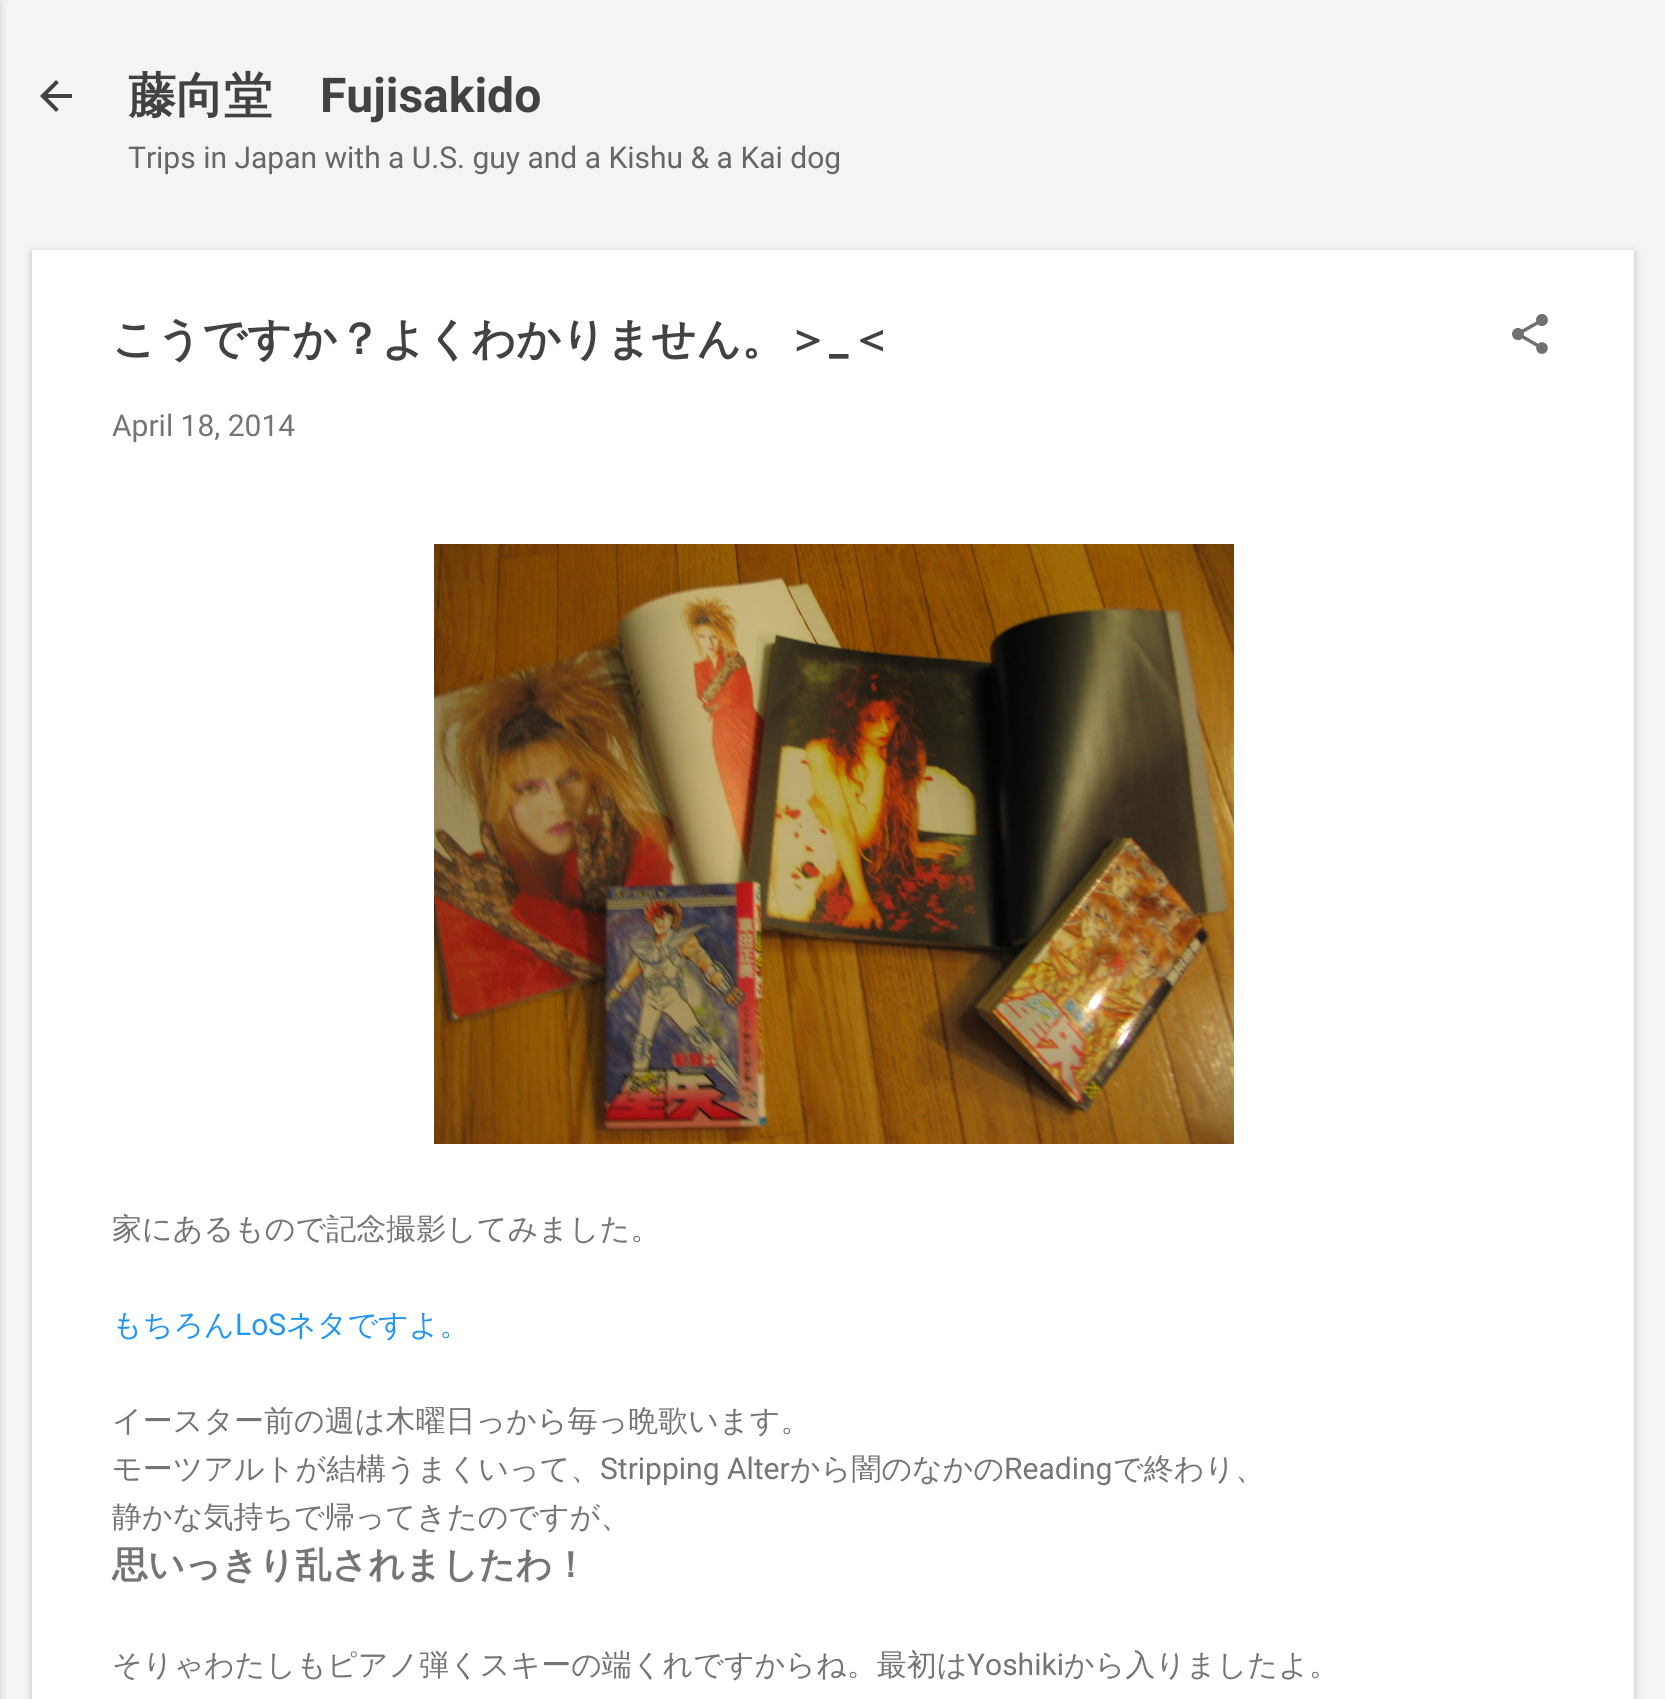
import math
import cairo

surface = cairo.ImageSurface(cairo.FORMAT_RGB24, 1665, 1699)
ctx = cairo.Context(surface)
options = cairo.FontOptions()
options.set_hint_metrics(cairo.HINT_METRICS_OFF)
options.set_hint_style(cairo.HINT_STYLE_NONE)
ctx.set_font_options(options)
ctx.set_miter_limit(4)


def round_rect(x, y, w, h, r):
    ctx.new_sub_path()
    for i, (u, v) in enumerate([(x + w - r, y + h - r), (x + r, y + h - r), (x + r, y + r), (x + w - r, y + r)]):
        ctx.arc(u, v, r, i * math.pi / 2, (i + 1) * math.pi / 2)
    ctx.close_path()


def shadow(x, y, w, h, r, blur, alpha):
    ctx.push_group_with_content(cairo.CONTENT_ALPHA)
    ctx.set_operator(cairo.OPERATOR_SOURCE)
    for i in range(15, -16, -2):
        e = blur * i / 6
        if min(w, h) + 2 * e > 0:
            ctx.set_source_rgba(0, 0, 0, alpha * math.erfc((i - 1) / 8.5) / 2)
            round_rect(x - e, y - e, w + 2 * e, h + 2 * e, max(0, min(r + e + blur * .6, min(w, h) / 2 + e)))
            ctx.fill()
    ctx.mask(ctx.pop_group())


def picture(path, x, y, w, h):
    ctx.save()
    ctx.set_source_surface(cairo.ImageSurface.create_from_png(path), x, y)
    ctx.rectangle(x, y, w, h)
    ctx.fill()
    ctx.restore()


ctx.set_source_rgb(0.957, 0.957, 0.957)
ctx.paint()
ctx.set_source_rgb(0, 0, 0)
shadow(-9, 2, 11, 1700, 0, 3, 0.1)
picture("img1.png", 40, 80, 32, 32)
ctx.select_font_face("WenQuanYi Zen Hei", cairo.FONT_SLANT_NORMAL, cairo.FONT_WEIGHT_BOLD)
ctx.set_font_size(48)
ctx.set_source_rgb(0.259, 0.259, 0.259)
ctx.move_to(128, 112)
ctx.show_text("藤向堂")
ctx.select_font_face("Roboto", cairo.FONT_SLANT_NORMAL, cairo.FONT_WEIGHT_BOLD)
ctx.move_to(320, 112)
ctx.show_text("Fujisakido")
ctx.select_font_face("Roboto")
ctx.set_font_size(30)
ctx.set_source_rgb(0.4, 0.4, 0.4)
ctx.move_to(128, 168)
ctx.show_text("Trips in Japan with a U.S. guy and a Kishu & a Kai dog")
ctx.set_source_rgb(0.235, 0.251, 0.263)
shadow(32, 252, 1602, 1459, 0, 4, 0.3)
ctx.set_source_rgb(1, 1, 1)
ctx.rectangle(32, 250, 1602, 1449)
ctx.fill()
ctx.select_font_face("WenQuanYi Zen Hei", cairo.FONT_SLANT_NORMAL, cairo.FONT_WEIGHT_BOLD)
ctx.set_font_size(44)
ctx.set_source_rgb(0.259, 0.259, 0.259)
ctx.move_to(112, 354)
ctx.show_text("こうですか？よくわかりません。＞")
ctx.move_to(849, 354)
ctx.show_text("＜")
ctx.select_font_face("Roboto", cairo.FONT_SLANT_NORMAL, cairo.FONT_WEIGHT_BOLD)
ctx.move_to(829, 354)
ctx.show_text("_")
picture("img2.png", 1512, 314, 36, 40)
ctx.select_font_face("Roboto")
ctx.set_font_size(30)
ctx.set_source_rgb(0.459, 0.459, 0.459)
ctx.move_to(112, 436)
ctx.show_text("April 18, 2014")
picture("img3.png", 434, 544, 800, 600)
ctx.select_font_face("WenQuanYi Zen Hei Medium")
ctx.move_to(112, 1239)
ctx.show_text("家にあるもので記念撮影してみました。")
ctx.set_source_rgb(0.129, 0.588, 0.953)
ctx.move_to(112, 1335)
ctx.show_text("もちろん")
ctx.select_font_face("Roboto")
ctx.move_to(235, 1335)
ctx.show_text("LoS")
ctx.select_font_face("WenQuanYi Zen Hei Medium")
ctx.move_to(286, 1335)
ctx.show_text("ネタですよ。")
ctx.set_source_rgb(0.459, 0.459, 0.459)
ctx.move_to(112, 1431)
ctx.show_text("イースター前の週は木曜日っから毎っ晩歌います。")
ctx.move_to(112, 1479)
ctx.show_text("モーツアルトが結構うまくいって、")
ctx.select_font_face("Roboto")
ctx.move_to(600, 1479)
ctx.show_text("Stripping Alter")
ctx.select_font_face("WenQuanYi Zen Hei Medium")
ctx.move_to(790, 1479)
ctx.show_text("から闇のなかの")
ctx.select_font_face("Roboto")
ctx.move_to(1004, 1479)
ctx.show_text("Reading")
ctx.select_font_face("WenQuanYi Zen Hei Medium")
ctx.move_to(1113, 1479)
ctx.show_text("で終わり、")
ctx.move_to(112, 1527)
ctx.show_text("静かな気持ちで帰ってきたのですが、")
ctx.select_font_face("WenQuanYi Zen Hei", cairo.FONT_SLANT_NORMAL, cairo.FONT_WEIGHT_BOLD)
ctx.set_font_size(36)
ctx.move_to(112, 1577)
ctx.show_text("思いっきり乱されましたわ！")
ctx.select_font_face("WenQuanYi Zen Hei Medium")
ctx.set_font_size(30)
ctx.move_to(112, 1675)
ctx.show_text("そりゃわたしもピアノ弾くスキーの端くれですからね。最初は")
ctx.select_font_face("Roboto")
ctx.move_to(967, 1675)
ctx.show_text("Yoshiki")
ctx.select_font_face("WenQuanYi Zen Hei Medium")
ctx.move_to(1064, 1675)
ctx.show_text("から入りましたよ。")
surface.write_to_png("page.png")
